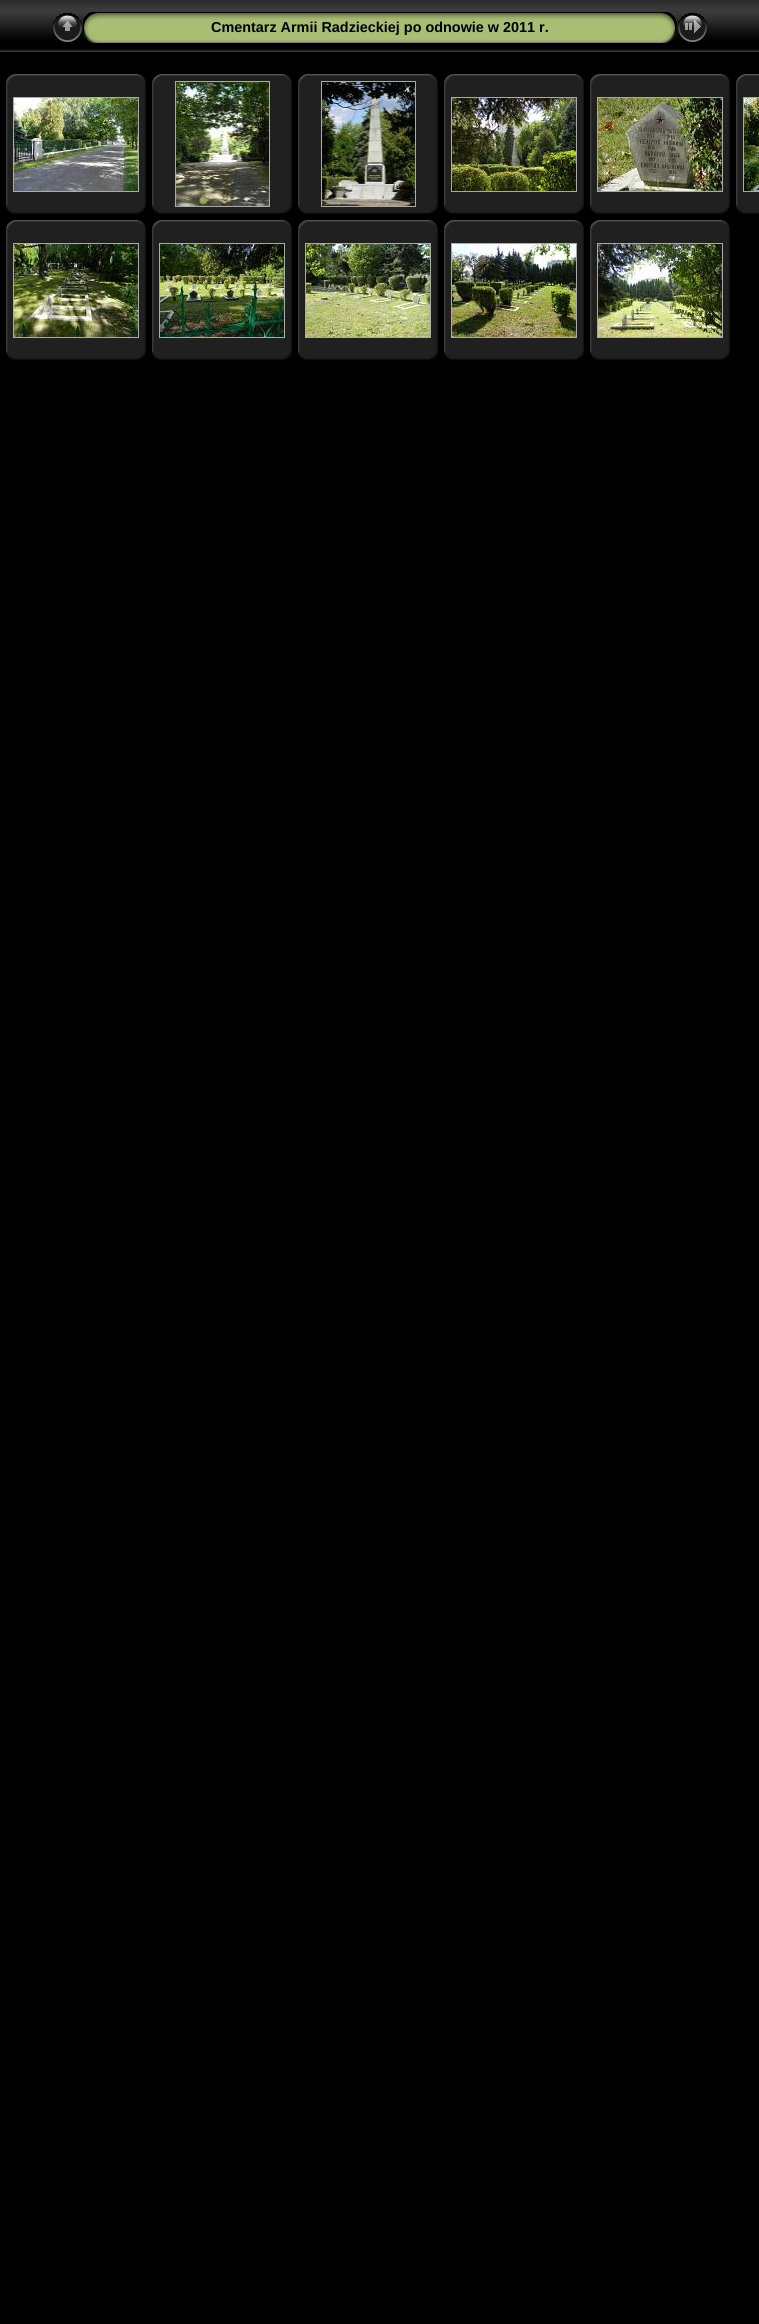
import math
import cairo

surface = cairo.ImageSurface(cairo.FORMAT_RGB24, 759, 2324)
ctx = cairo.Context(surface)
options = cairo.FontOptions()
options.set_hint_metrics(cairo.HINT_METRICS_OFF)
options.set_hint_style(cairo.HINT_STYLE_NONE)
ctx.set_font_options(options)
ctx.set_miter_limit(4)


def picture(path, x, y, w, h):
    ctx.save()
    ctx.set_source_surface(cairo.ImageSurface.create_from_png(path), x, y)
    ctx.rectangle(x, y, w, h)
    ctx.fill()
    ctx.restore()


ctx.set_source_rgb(0, 0, 0)
ctx.paint()
picture("img1.png", 0, 0, 759, 52)
picture("img2.png", 53, 13, 29, 29)
picture("img3.png", 83, 12, 20, 31)
picture("img4.png", 103, 12, 554, 31)
ctx.select_font_face("Liberation Sans", cairo.FONT_SLANT_NORMAL, cairo.FONT_WEIGHT_BOLD)
ctx.set_font_size(14.4)
ctx.set_source_rgb(0, 0, 0)
ctx.move_to(211, 32)
ctx.show_text("Cmentarz Armii Radzieckiej po odnowie w 2011 r.")
picture("img5.png", 657, 12, 20, 31)
picture("img6.png", 678, 13, 29, 29)
picture("img7.png", 6, 74, 140, 140)
ctx.rectangle(13.5, 97.5, 125, 94)
ctx.set_source_rgb(0.667, 0.667, 0.667)
ctx.set_line_width(1)
ctx.stroke()
picture("img8.png", 14, 98, 124, 93)
picture("img7.png", 152, 74, 140, 140)
ctx.rectangle(175.5, 81.5, 94, 125)
ctx.stroke()
picture("img9.png", 176, 82, 93, 124)
picture("img7.png", 298, 74, 140, 140)
ctx.rectangle(321.5, 81.5, 94, 125)
ctx.stroke()
picture("img10.png", 322, 82, 93, 124)
picture("img7.png", 444, 74, 140, 140)
ctx.rectangle(451.5, 97.5, 125, 94)
ctx.stroke()
picture("img11.png", 452, 98, 124, 93)
picture("img7.png", 590, 74, 140, 140)
ctx.rectangle(597.5, 97.5, 125, 94)
ctx.stroke()
picture("img12.png", 598, 98, 124, 93)
picture("img13.png", 736, 74, 23, 140)
ctx.rectangle(743.5, 97.5, 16, 94)
ctx.stroke()
picture("img14.png", 744, 98, 15, 93)
picture("img7.png", 6, 220, 140, 140)
ctx.rectangle(13.5, 243.5, 125, 94)
ctx.stroke()
picture("img15.png", 14, 244, 124, 93)
picture("img7.png", 152, 220, 140, 140)
ctx.rectangle(159.5, 243.5, 125, 94)
ctx.stroke()
picture("img16.png", 160, 244, 124, 93)
picture("img7.png", 298, 220, 140, 140)
ctx.rectangle(305.5, 243.5, 125, 94)
ctx.stroke()
picture("img17.png", 306, 244, 124, 93)
picture("img7.png", 444, 220, 140, 140)
ctx.rectangle(451.5, 243.5, 125, 94)
ctx.stroke()
picture("img18.png", 452, 244, 124, 93)
picture("img7.png", 590, 220, 140, 140)
ctx.rectangle(597.5, 243.5, 125, 94)
ctx.stroke()
picture("img19.png", 598, 244, 124, 93)
surface.write_to_png("page.png")
